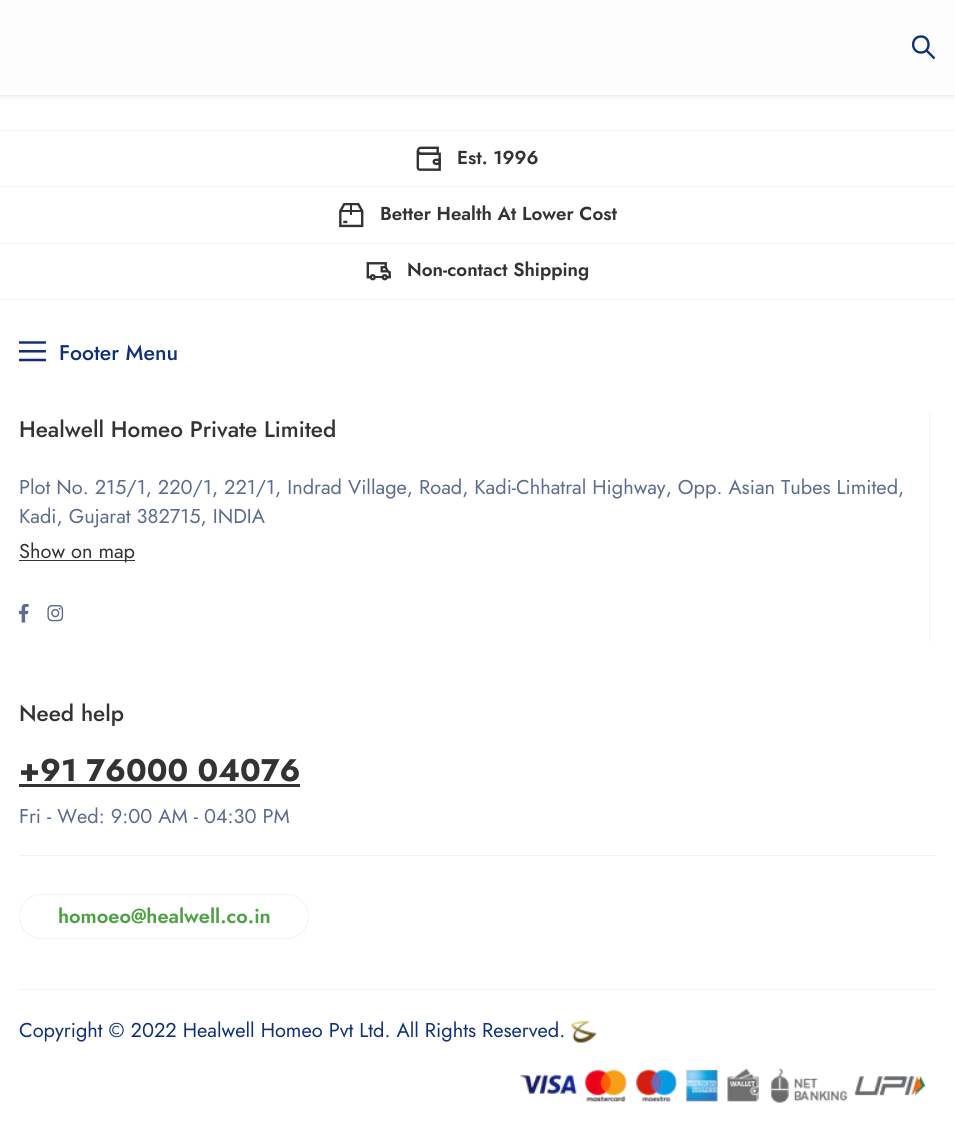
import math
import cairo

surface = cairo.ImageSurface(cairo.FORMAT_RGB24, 955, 1132)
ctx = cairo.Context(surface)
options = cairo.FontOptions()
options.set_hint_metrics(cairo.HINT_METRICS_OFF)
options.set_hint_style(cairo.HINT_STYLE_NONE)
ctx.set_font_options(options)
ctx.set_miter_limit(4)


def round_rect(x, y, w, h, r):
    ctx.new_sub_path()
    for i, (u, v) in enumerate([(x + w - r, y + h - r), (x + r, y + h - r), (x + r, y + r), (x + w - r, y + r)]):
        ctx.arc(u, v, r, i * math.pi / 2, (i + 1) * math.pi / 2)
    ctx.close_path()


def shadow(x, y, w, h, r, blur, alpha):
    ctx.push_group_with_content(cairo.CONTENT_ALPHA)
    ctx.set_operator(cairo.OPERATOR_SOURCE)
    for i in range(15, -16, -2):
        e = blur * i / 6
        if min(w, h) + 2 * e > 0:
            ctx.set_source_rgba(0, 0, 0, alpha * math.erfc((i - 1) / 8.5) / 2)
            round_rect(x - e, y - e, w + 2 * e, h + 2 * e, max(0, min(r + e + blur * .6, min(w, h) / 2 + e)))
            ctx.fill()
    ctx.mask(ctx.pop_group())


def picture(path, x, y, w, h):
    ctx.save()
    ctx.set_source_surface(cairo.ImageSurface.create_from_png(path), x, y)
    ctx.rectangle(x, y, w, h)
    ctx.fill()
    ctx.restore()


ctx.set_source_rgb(1, 1, 1)
ctx.paint()
ctx.set_source_rgb(0.125, 0.129, 0.141)
shadow(0, 0, 955, 95, 0, 4, 0.15)
ctx.set_source_rgb(0.992, 0.992, 0.992)
ctx.rectangle(0, 0, 955, 95)
ctx.fill()
ctx.new_path()
ctx.move_to(921, 52.5)
ctx.curve_to(931, 52.5, 931, 36.5, 921, 36.5)
ctx.curve_to(910.5, 36.5, 910.5, 52.5, 921, 52.5)
ctx.close_path()
ctx.move_to(934.5, 58.5)
ctx.line_to(926, 50)
ctx.set_source_rgb(0.063, 0.192, 0.471)
ctx.set_line_width(2.4)
ctx.stroke()
ctx.set_source_rgb(0.941, 0.949, 0.961)
ctx.rectangle(0, 130, 955, 1)
ctx.fill()
ctx.rectangle(0, 299, 955, 1)
ctx.fill()
ctx.rectangle(0, 186, 955, 1)
ctx.fill()
picture("img1.png", 416, 146, 25, 25)
ctx.select_font_face("Jost SemiBold")
ctx.set_font_size(18.75)
ctx.set_source_rgb(0.2, 0.2, 0.2)
ctx.move_to(457, 164)
ctx.show_text("Est. 1996")
ctx.set_source_rgb(0.941, 0.949, 0.961)
ctx.rectangle(0, 243, 955, 1)
ctx.fill()
picture("img2.png", 339, 203, 25, 25)
ctx.set_source_rgb(0.2, 0.2, 0.2)
ctx.move_to(380, 220)
ctx.show_text("Better Health At Lower Cost")
picture("img3.png", 366, 262, 25, 19)
ctx.move_to(407, 276)
ctx.show_text("Non-contact Shipping")
picture("img4.png", 19, 341, 27, 21)
ctx.select_font_face("Jost Medium")
ctx.set_font_size(21.25)
ctx.set_source_rgb(0.063, 0.192, 0.471)
ctx.move_to(59, 360)
ctx.show_text("Footer Menu")
ctx.set_source_rgb(0.941, 0.949, 0.961)
ctx.rectangle(929, 413, 1, 228)
ctx.fill()
ctx.set_font_size(22.5)
ctx.set_source_rgb(0.2, 0.2, 0.2)
ctx.move_to(19, 437)
ctx.show_text("Healwell Homeo Private Limited")
ctx.select_font_face("Jost")
ctx.set_font_size(20)
ctx.set_source_rgb(0.357, 0.424, 0.561)
ctx.move_to(19, 494)
ctx.show_text("Plot No. 215/1, 220/1, 221/1, Indrad Village, Road, Kadi-Chhatral Highway, Opp. Asian Tubes Limited,")
ctx.move_to(19, 523)
ctx.show_text("Kadi, Gujarat 382715, INDIA")
ctx.set_source_rgb(0.2, 0.2, 0.2)
ctx.rectangle(19, 560, 116, 1)
ctx.fill()
ctx.move_to(19, 558)
ctx.show_text("Show on map")
picture("img5.png", 19, 604, 10, 19)
picture("img6.png", 47, 605, 17, 17)
ctx.select_font_face("Jost Medium")
ctx.set_font_size(22.5)
ctx.move_to(19, 721)
ctx.show_text("Need help")
ctx.select_font_face("Jost", cairo.FONT_SLANT_NORMAL, cairo.FONT_WEIGHT_BOLD)
ctx.set_font_size(31.25)
ctx.move_to(19, 781)
ctx.show_text("+91 76000 04076")
ctx.rectangle(19, 784, 281, 3)
ctx.fill()
ctx.select_font_face("Jost")
ctx.set_font_size(20)
ctx.set_source_rgb(0.357, 0.424, 0.561)
ctx.move_to(19, 823)
ctx.show_text("Fri - Wed: 9:00 AM - 04:30 PM")
ctx.set_source_rgb(0.941, 0.949, 0.961)
ctx.rectangle(19, 855, 917, 1)
ctx.fill()
round_rect(19.5, 894.5, 289, 44, 22)
ctx.set_line_width(1)
ctx.stroke()
ctx.select_font_face("Jost SemiBold")
ctx.set_source_rgb(0.298, 0.635, 0.263)
ctx.move_to(58, 923)
ctx.show_text("homoeo@healwell.co.in")
ctx.set_source_rgb(0.941, 0.949, 0.961)
ctx.rectangle(19, 989, 917, 1)
ctx.fill()
ctx.select_font_face("Jost")
ctx.set_source_rgb(0.063, 0.192, 0.471)
ctx.move_to(19, 1037)
ctx.show_text("Copyright © 2022 Healwell Homeo Pvt Ltd. All Rights Reserved.")
picture("img7.png", 571, 1021, 26, 22)
picture("img8.png", 520, 1068, 406, 35)
surface.write_to_png("page.png")
